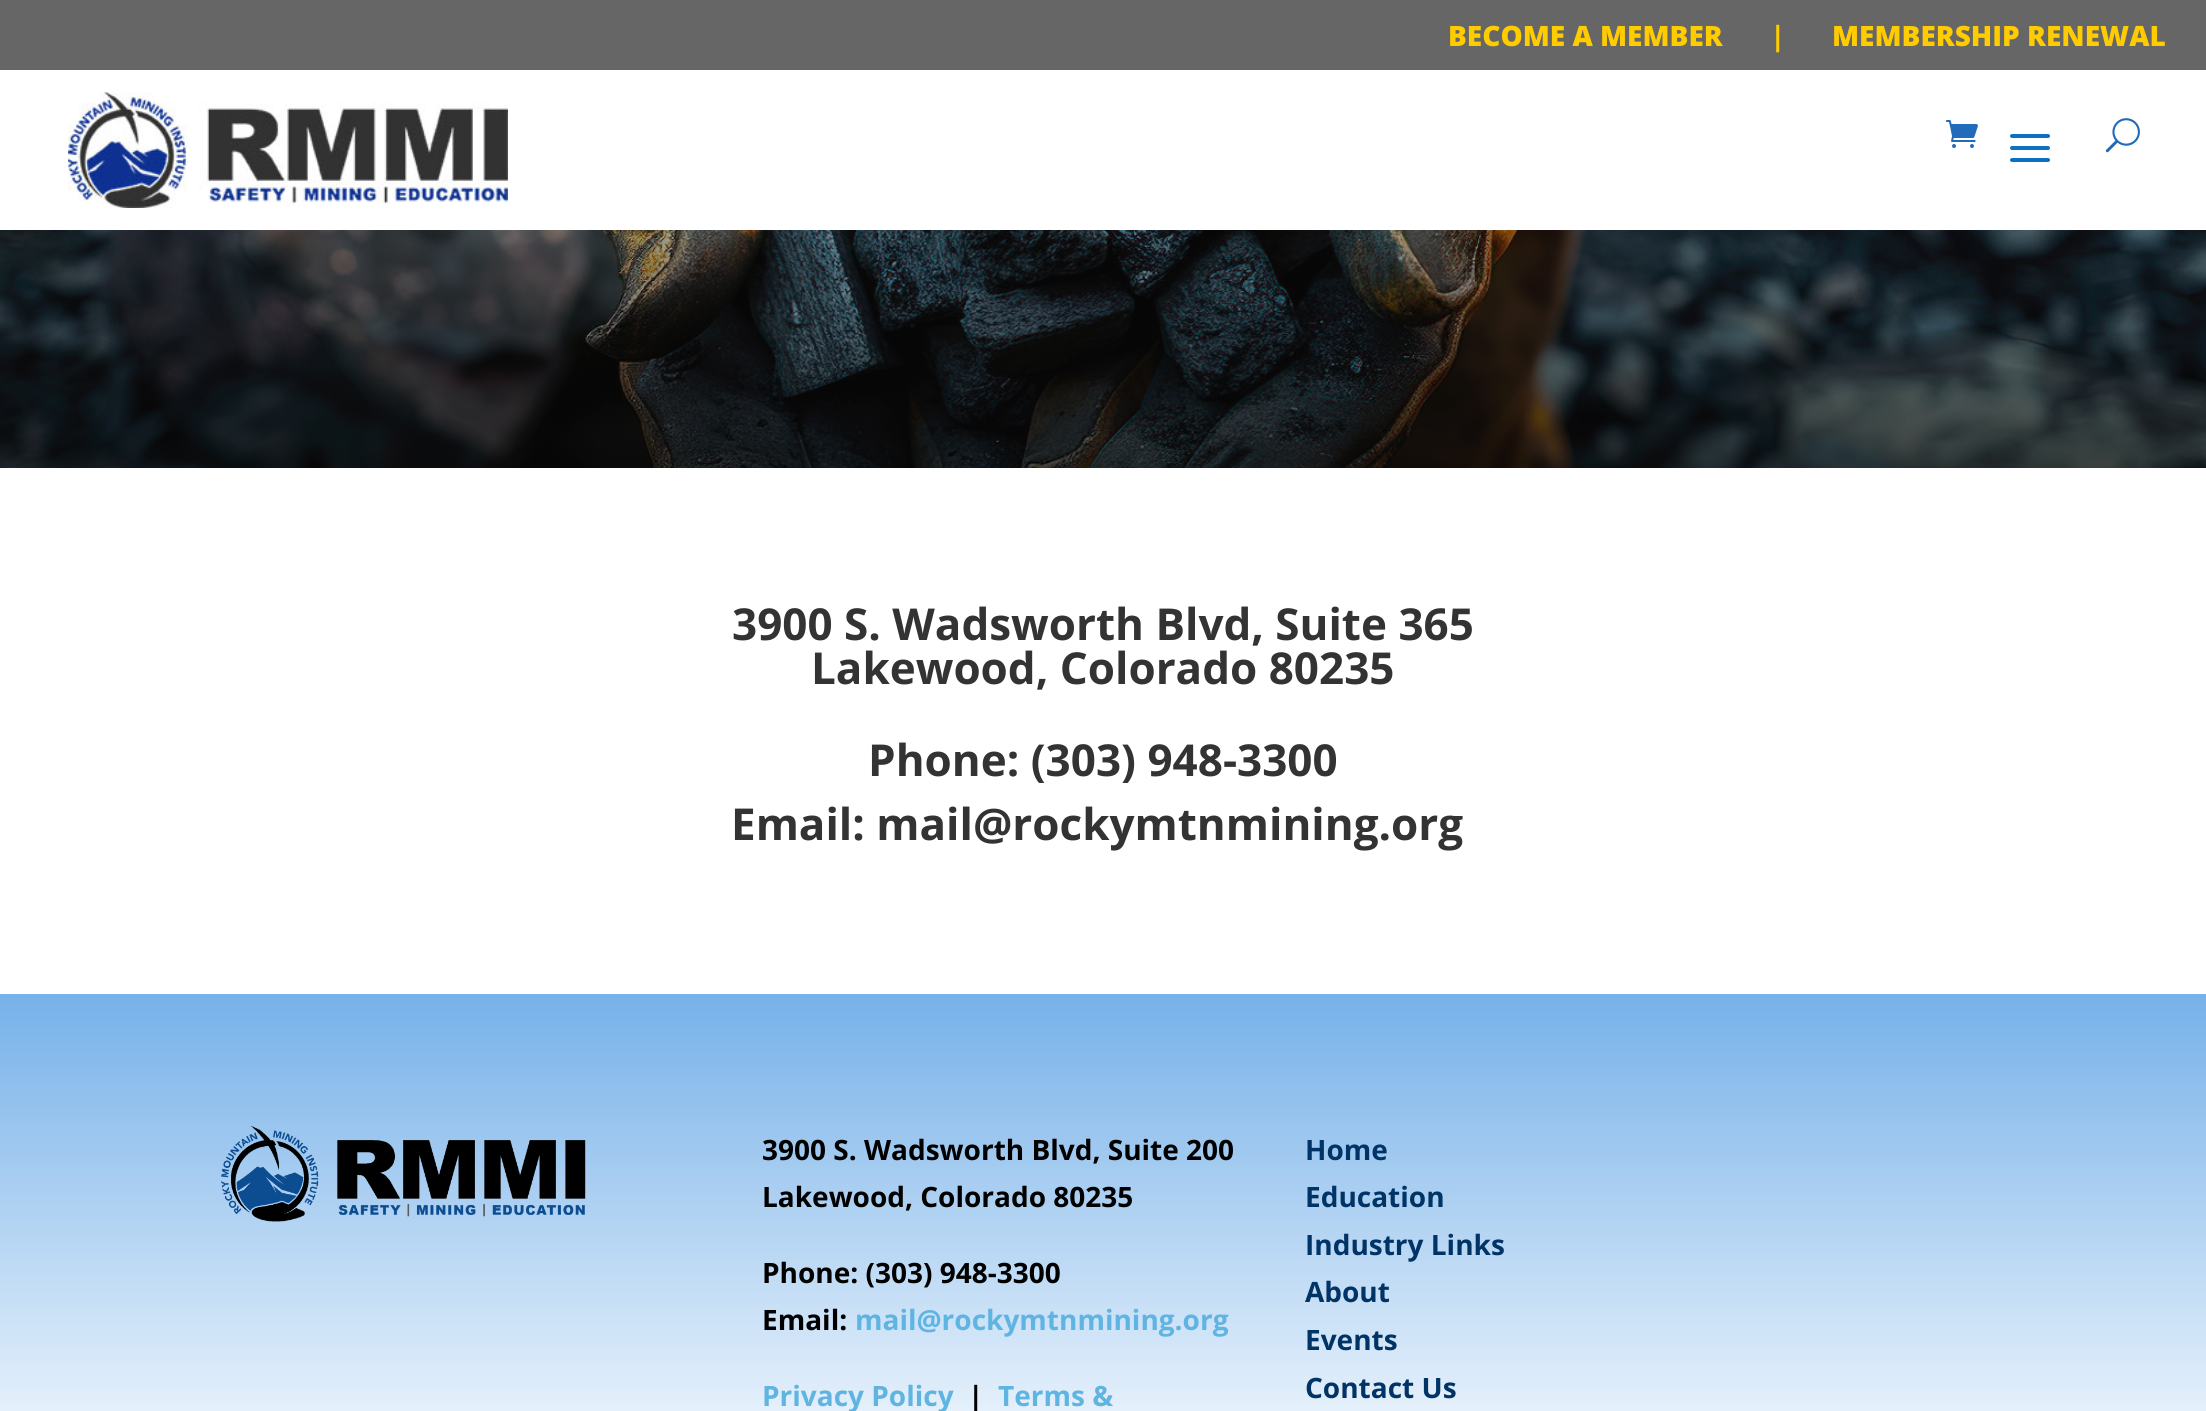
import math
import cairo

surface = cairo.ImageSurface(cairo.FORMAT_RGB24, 2206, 1411)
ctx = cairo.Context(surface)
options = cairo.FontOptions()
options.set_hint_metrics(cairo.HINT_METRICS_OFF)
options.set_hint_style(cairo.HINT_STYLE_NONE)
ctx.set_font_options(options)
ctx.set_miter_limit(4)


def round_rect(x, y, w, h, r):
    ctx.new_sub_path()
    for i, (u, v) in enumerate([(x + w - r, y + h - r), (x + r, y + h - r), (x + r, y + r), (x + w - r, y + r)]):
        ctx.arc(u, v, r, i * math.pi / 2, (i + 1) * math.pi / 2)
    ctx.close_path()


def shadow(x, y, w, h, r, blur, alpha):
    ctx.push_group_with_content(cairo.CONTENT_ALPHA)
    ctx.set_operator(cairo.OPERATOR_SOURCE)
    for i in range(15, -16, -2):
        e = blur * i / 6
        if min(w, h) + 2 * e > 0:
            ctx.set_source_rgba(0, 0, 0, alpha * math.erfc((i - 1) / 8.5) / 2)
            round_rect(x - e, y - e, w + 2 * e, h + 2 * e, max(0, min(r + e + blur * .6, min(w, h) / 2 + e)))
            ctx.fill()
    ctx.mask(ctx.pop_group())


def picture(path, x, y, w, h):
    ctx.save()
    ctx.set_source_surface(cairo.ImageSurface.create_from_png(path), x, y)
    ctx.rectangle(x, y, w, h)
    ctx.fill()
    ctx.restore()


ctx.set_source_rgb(1, 1, 1)
ctx.paint()
picture("img5.png", 0, 230, 2206, 238)
ctx.set_source_rgb(0, 0, 0)
shadow(0, 0, 2206, 230, 0, 7, 0.1)
ctx.set_source_rgb(1, 1, 1)
ctx.rectangle(0, 70, 2206, 160)
ctx.fill()
ctx.set_source_rgb(0.4, 0.4, 0.4)
ctx.rectangle(0, 0, 2206, 70)
ctx.fill()
ctx.select_font_face("Open Sans ExtraBold")
ctx.set_font_size(28)
ctx.set_source_rgb(1, 0.8, 0)
ctx.move_to(1448, 46)
ctx.show_text("BECOME A MEMBER")
ctx.select_font_face("Open Sans", cairo.FONT_SLANT_NORMAL, cairo.FONT_WEIGHT_BOLD)
ctx.move_to(1770, 46)
ctx.show_text("|")
ctx.select_font_face("Open Sans ExtraBold")
ctx.move_to(1832, 46)
ctx.show_text("MEMBERSHIP RENEWAL")
picture("img1.png", 68, 92, 440, 116)
picture("img2.png", 1946, 120, 32, 28)
picture("img3.png", 2010, 134, 40, 28)
picture("img4.png", 2105, 118, 35, 35)
ctx.select_font_face("Open Sans", cairo.FONT_SLANT_NORMAL, cairo.FONT_WEIGHT_BOLD)
ctx.set_font_size(44)
ctx.set_source_rgb(0.2, 0.2, 0.2)
ctx.move_to(732, 640)
ctx.show_text("3900 S. Wadsworth Blvd, Suite 365")
ctx.move_to(811, 684)
ctx.show_text("Lakewood, Colorado 80235")
ctx.move_to(868, 776)
ctx.show_text("Phone: (303) 948-3300")
ctx.move_to(731, 840)
ctx.show_text("Email: mail@rockymtnmining.org")
gradient = cairo.LinearGradient(1103, 994, 1103, 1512)
gradient.add_color_stop_rgba(0, 0.463, 0.694, 0.914, 1)
gradient.add_color_stop_rgba(1, 1, 1, 1, 1)
ctx.set_source(gradient)
ctx.rectangle(0, 994, 2206, 417)
ctx.fill()
picture("img6.png", 221, 1126, 365, 96)
ctx.set_font_size(28)
ctx.set_source_rgb(0, 0, 0)
ctx.move_to(762, 1160)
ctx.show_text("3900 S. Wadsworth Blvd, Suite 200")
ctx.move_to(762, 1207)
ctx.show_text("Lakewood, Colorado 80235")
ctx.move_to(762, 1283)
ctx.show_text("Phone: (303) 948-3300")
ctx.move_to(762, 1330)
ctx.show_text("Email:")
ctx.set_source_rgb(0.373, 0.706, 0.886)
ctx.move_to(855, 1330)
ctx.show_text("mail@rockymtnmining.org")
ctx.move_to(762, 1406)
ctx.show_text("Privacy Policy")
ctx.set_source_rgb(0, 0, 0)
ctx.move_to(968, 1406)
ctx.show_text("|")
ctx.set_source_rgb(0.373, 0.706, 0.886)
ctx.move_to(998, 1406)
ctx.show_text("Terms &")
ctx.set_source_rgb(0, 0.2, 0.4)
ctx.move_to(1305, 1160)
ctx.show_text("Home")
ctx.move_to(1305, 1207)
ctx.show_text("Education")
ctx.move_to(1305, 1255)
ctx.show_text("Industry Links")
ctx.move_to(1305, 1302)
ctx.show_text("About")
ctx.move_to(1305, 1350)
ctx.show_text("Events")
ctx.move_to(1305, 1398)
ctx.show_text("Contact Us")
surface.write_to_png("page.png")
